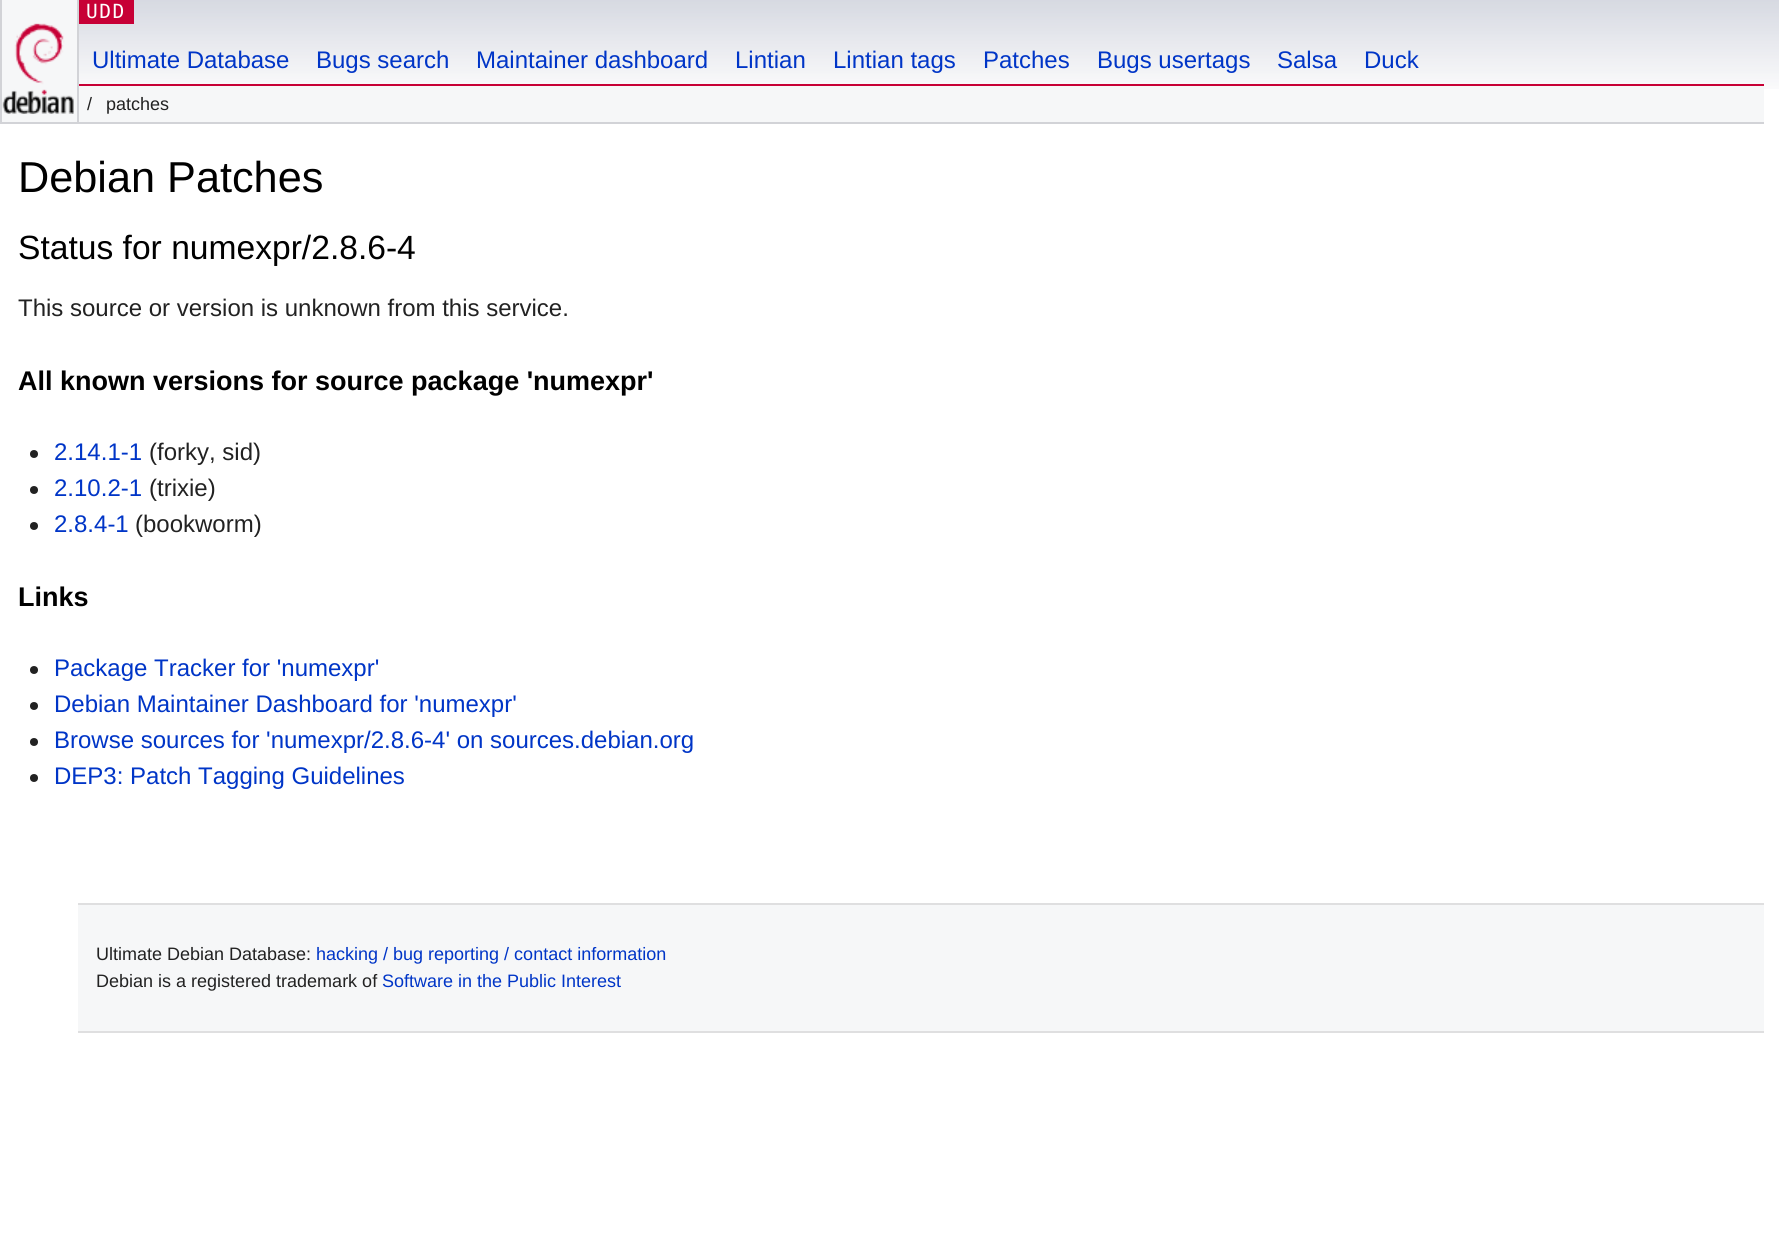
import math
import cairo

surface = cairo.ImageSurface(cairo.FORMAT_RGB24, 1779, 1247)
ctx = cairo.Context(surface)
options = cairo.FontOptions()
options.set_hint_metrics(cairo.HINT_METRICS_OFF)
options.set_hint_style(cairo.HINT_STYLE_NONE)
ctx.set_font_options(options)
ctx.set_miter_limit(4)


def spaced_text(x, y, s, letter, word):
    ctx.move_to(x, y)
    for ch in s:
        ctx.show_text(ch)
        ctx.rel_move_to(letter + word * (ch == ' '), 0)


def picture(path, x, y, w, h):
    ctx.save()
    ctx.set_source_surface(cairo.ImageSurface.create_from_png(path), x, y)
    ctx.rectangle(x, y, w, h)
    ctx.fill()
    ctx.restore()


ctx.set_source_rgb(1, 1, 1)
ctx.paint()
picture("img1.png", 79, 0, 1700, 89)
ctx.set_source_rgb(0.961, 0.965, 0.969)
ctx.rectangle(2, 0, 75, 122)
ctx.fill()
ctx.set_source_rgb(0.78, 0, 0.212)
ctx.rectangle(78, 84, 1686, 2)
ctx.fill()
ctx.set_source_rgb(0.824, 0.827, 0.843)
ctx.rectangle(78, 122, 1686, 2)
ctx.fill()
ctx.rectangle(77, 0, 2, 123)
ctx.fill()
ctx.rectangle(0, 122, 78, 2)
ctx.fill()
ctx.rectangle(0, 0, 2, 123)
ctx.fill()
picture("img2.png", 2, 23, 72, 91)
ctx.set_source_rgb(0.78, 0, 0.212)
ctx.rectangle(79, 0, 55, 24)
ctx.fill()
ctx.select_font_face("DejaVu Sans Mono")
ctx.set_font_size(19.5)
ctx.set_source_rgb(1, 1, 1)
spaced_text(86, 18, "UDD", 1.5, 0)
ctx.select_font_face("Liberation Sans")
ctx.set_font_size(24)
ctx.set_source_rgb(0, 0.208, 0.78)
ctx.move_to(92, 68)
ctx.show_text("Ultimate Database")
ctx.move_to(316, 68)
ctx.show_text("Bugs search")
ctx.move_to(476, 68)
ctx.show_text("Maintainer dashboard")
ctx.move_to(735, 68)
ctx.show_text("Lintian")
ctx.move_to(833, 68)
ctx.show_text("Lintian tags")
ctx.move_to(983, 68)
ctx.show_text("Patches")
ctx.move_to(1097, 68)
ctx.show_text("Bugs usertags")
ctx.move_to(1277, 68)
ctx.show_text("Salsa")
ctx.move_to(1364, 68)
ctx.show_text("Duck")
ctx.set_source_rgb(0.961, 0.965, 0.969)
ctx.rectangle(79, 86, 1685, 36)
ctx.fill()
ctx.set_font_size(18)
ctx.set_source_rgb(0.133, 0.133, 0.133)
ctx.move_to(87, 110)
ctx.show_text("/")
ctx.move_to(106, 110)
ctx.show_text("patches")
ctx.set_font_size(43.25)
ctx.set_source_rgb(0, 0, 0)
ctx.move_to(18, 192)
ctx.show_text("Debian Patches")
ctx.set_font_size(33.6)
ctx.move_to(18, 259)
ctx.show_text("Status for numexpr/2.8.6-4")
ctx.set_font_size(24)
ctx.set_source_rgb(0.133, 0.133, 0.133)
ctx.move_to(18, 316)
ctx.show_text("This source or version is unknown from this service.")
ctx.select_font_face("Liberation Sans", cairo.FONT_SLANT_NORMAL, cairo.FONT_WEIGHT_BOLD)
ctx.set_font_size(27)
ctx.set_source_rgb(0, 0, 0)
ctx.move_to(18, 390)
ctx.show_text("All known versions for source package 'numexpr'")
ctx.set_source_rgb(0.133, 0.133, 0.133)
ctx.new_path()
ctx.arc(34, 454, 4, 0, 2 * math.pi)
ctx.fill()
ctx.select_font_face("Liberation Sans")
ctx.set_font_size(24)
ctx.set_source_rgb(0, 0.208, 0.78)
ctx.move_to(54, 460)
ctx.show_text("2.14.1-1")
ctx.set_source_rgb(0.133, 0.133, 0.133)
ctx.move_to(149, 460)
ctx.show_text("(forky, sid)")
ctx.new_path()
ctx.arc(34, 490, 4, 0, 2 * math.pi)
ctx.fill()
ctx.set_source_rgb(0, 0.208, 0.78)
ctx.move_to(54, 496)
ctx.show_text("2.10.2-1")
ctx.set_source_rgb(0.133, 0.133, 0.133)
ctx.move_to(149, 496)
ctx.show_text("(trixie)")
ctx.new_path()
ctx.arc(34, 526, 4, 0, 2 * math.pi)
ctx.fill()
ctx.set_source_rgb(0, 0.208, 0.78)
ctx.move_to(54, 532)
ctx.show_text("2.8.4-1")
ctx.set_source_rgb(0.133, 0.133, 0.133)
ctx.move_to(135, 532)
ctx.show_text("(bookworm)")
ctx.select_font_face("Liberation Sans", cairo.FONT_SLANT_NORMAL, cairo.FONT_WEIGHT_BOLD)
ctx.set_font_size(27)
ctx.set_source_rgb(0, 0, 0)
ctx.move_to(18, 606)
ctx.show_text("Links")
ctx.set_source_rgb(0.133, 0.133, 0.133)
ctx.new_path()
ctx.arc(34, 670, 4, 0, 2 * math.pi)
ctx.fill()
ctx.select_font_face("Liberation Sans")
ctx.set_font_size(24)
ctx.set_source_rgb(0, 0.208, 0.78)
ctx.move_to(54, 676)
ctx.show_text("Package Tracker for 'numexpr'")
ctx.set_source_rgb(0.133, 0.133, 0.133)
ctx.new_path()
ctx.arc(34, 706, 4, 0, 2 * math.pi)
ctx.fill()
ctx.set_source_rgb(0, 0.208, 0.78)
ctx.move_to(54, 712)
ctx.show_text("Debian Maintainer Dashboard for 'numexpr'")
ctx.set_source_rgb(0.133, 0.133, 0.133)
ctx.new_path()
ctx.arc(34, 742, 4, 0, 2 * math.pi)
ctx.fill()
ctx.set_source_rgb(0, 0.208, 0.78)
ctx.move_to(54, 748)
ctx.show_text("Browse sources for 'numexpr/2.8.6-4' on sources.debian.org")
ctx.set_source_rgb(0.133, 0.133, 0.133)
ctx.new_path()
ctx.arc(34, 778, 4, 0, 2 * math.pi)
ctx.fill()
ctx.set_source_rgb(0, 0.208, 0.78)
ctx.move_to(54, 784)
ctx.show_text("DEP3: Patch Tagging Guidelines")
ctx.set_source_rgb(0.961, 0.965, 0.969)
ctx.rectangle(78, 905, 1686, 126)
ctx.fill()
ctx.set_source_rgb(0.875, 0.875, 0.878)
ctx.rectangle(78, 903, 1686, 2)
ctx.fill()
ctx.rectangle(78, 1031, 1686, 2)
ctx.fill()
ctx.set_font_size(18)
ctx.set_source_rgb(0.133, 0.133, 0.133)
ctx.move_to(96, 960)
ctx.show_text("Ultimate Debian Database:")
ctx.set_source_rgb(0, 0.208, 0.78)
ctx.move_to(316, 960)
ctx.show_text("hacking / bug reporting / contact information")
ctx.set_source_rgb(0.133, 0.133, 0.133)
ctx.move_to(96, 987)
ctx.show_text("Debian is a registered trademark of")
ctx.set_source_rgb(0, 0.208, 0.78)
ctx.move_to(382, 987)
ctx.show_text("Software in the Public Interest")
surface.write_to_png("page.png")
